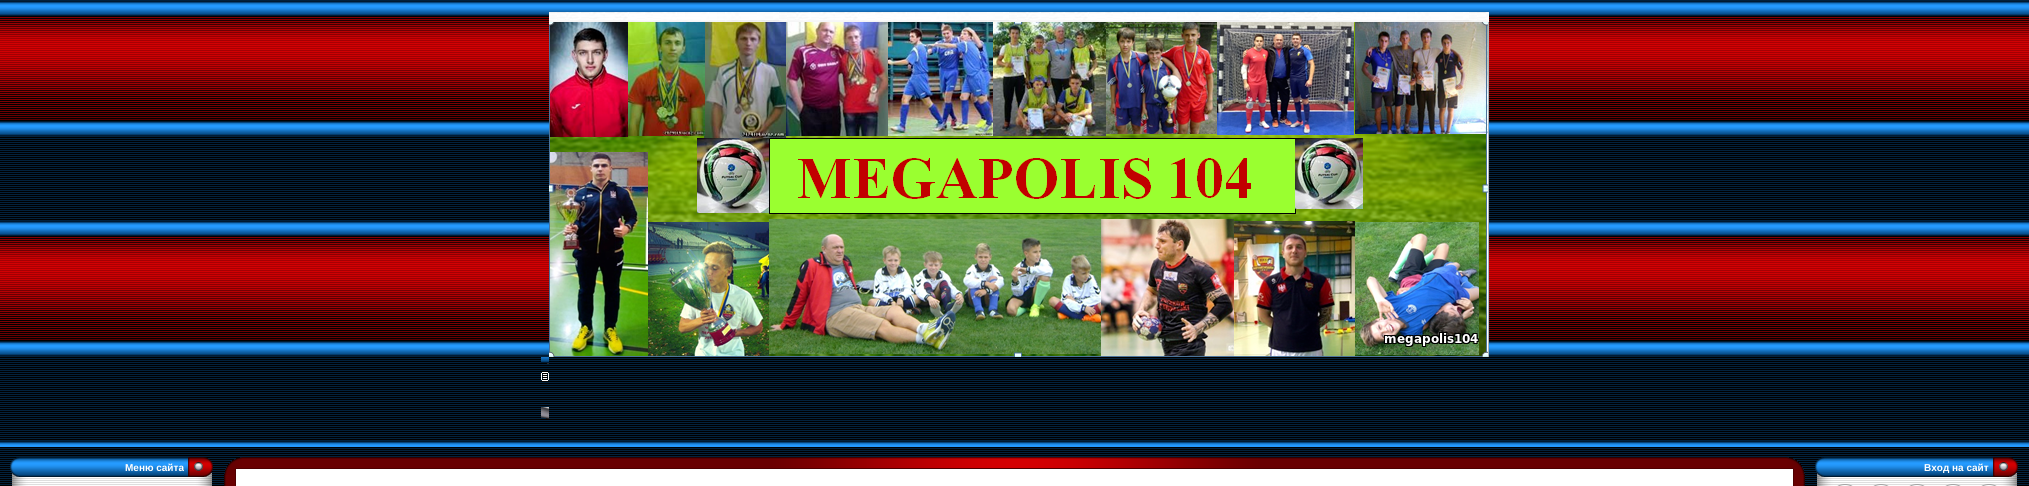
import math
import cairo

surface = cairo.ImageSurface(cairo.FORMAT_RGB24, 2029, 486)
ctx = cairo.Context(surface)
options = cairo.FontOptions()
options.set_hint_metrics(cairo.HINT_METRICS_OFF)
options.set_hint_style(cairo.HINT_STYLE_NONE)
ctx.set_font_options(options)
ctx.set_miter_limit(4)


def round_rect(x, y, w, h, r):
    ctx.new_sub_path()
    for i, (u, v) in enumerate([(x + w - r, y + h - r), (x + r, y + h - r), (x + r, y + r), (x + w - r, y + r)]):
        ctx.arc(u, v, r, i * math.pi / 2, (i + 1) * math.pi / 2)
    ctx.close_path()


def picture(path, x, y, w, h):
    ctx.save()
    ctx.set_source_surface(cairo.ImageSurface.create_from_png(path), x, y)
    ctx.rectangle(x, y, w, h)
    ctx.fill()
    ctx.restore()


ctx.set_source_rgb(0.012, 0.133, 0.235)
ctx.paint()
picture("img1.png", 0, 136, 2029, 350)
picture("img2.png", 0, 1, 2029, 446)
picture("img3.png", 549, 12, 940, 10)
picture("img4.png", 549, 22, 940, 335)
picture("img5.png", 541, 357, 8, 7)
picture("img6.png", 541, 372, 8, 9)
picture("img7.png", 541, 407, 8, 12)
picture("img8.png", 10, 457, 203, 20)
ctx.select_font_face("Liberation Sans", cairo.FONT_SLANT_NORMAL, cairo.FONT_WEIGHT_BOLD)
ctx.set_font_size(10)
ctx.set_source_rgb(1, 1, 1)
ctx.move_to(125, 471)
ctx.show_text("Меню сайта")
picture("img9.png", 12, 477, 200, 9)
picture("img10.png", 224, 457, 18, 18)
picture("img11.png", 242, 457, 1545, 18)
picture("img12.png", 770, 457, 490, 11)
picture("img13.png", 1787, 457, 18, 18)
picture("img14.png", 224, 475, 18, 11)
ctx.rectangle(242, 475, 1545, 11)
ctx.fill()
picture("img15.png", 1787, 475, 18, 11)
picture("img8.png", 1815, 457, 203, 20)
ctx.move_to(1924, 471)
ctx.show_text("Вход на сайт")
picture("img9.png", 1817, 477, 200, 9)
round_rect(1829.5, 484.5, 31, 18, 15.5)
ctx.set_source_rgb(0.647, 0.647, 0.647)
ctx.set_line_width(1)
ctx.stroke()
round_rect(1865.5, 484.5, 31, 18, 15.5)
ctx.stroke()
round_rect(1901.5, 484.5, 31, 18, 15.5)
ctx.stroke()
round_rect(1937.5, 484.5, 31, 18, 15.5)
ctx.stroke()
round_rect(1973.5, 484.5, 31, 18, 15.5)
ctx.stroke()
surface.write_to_png("page.png")
